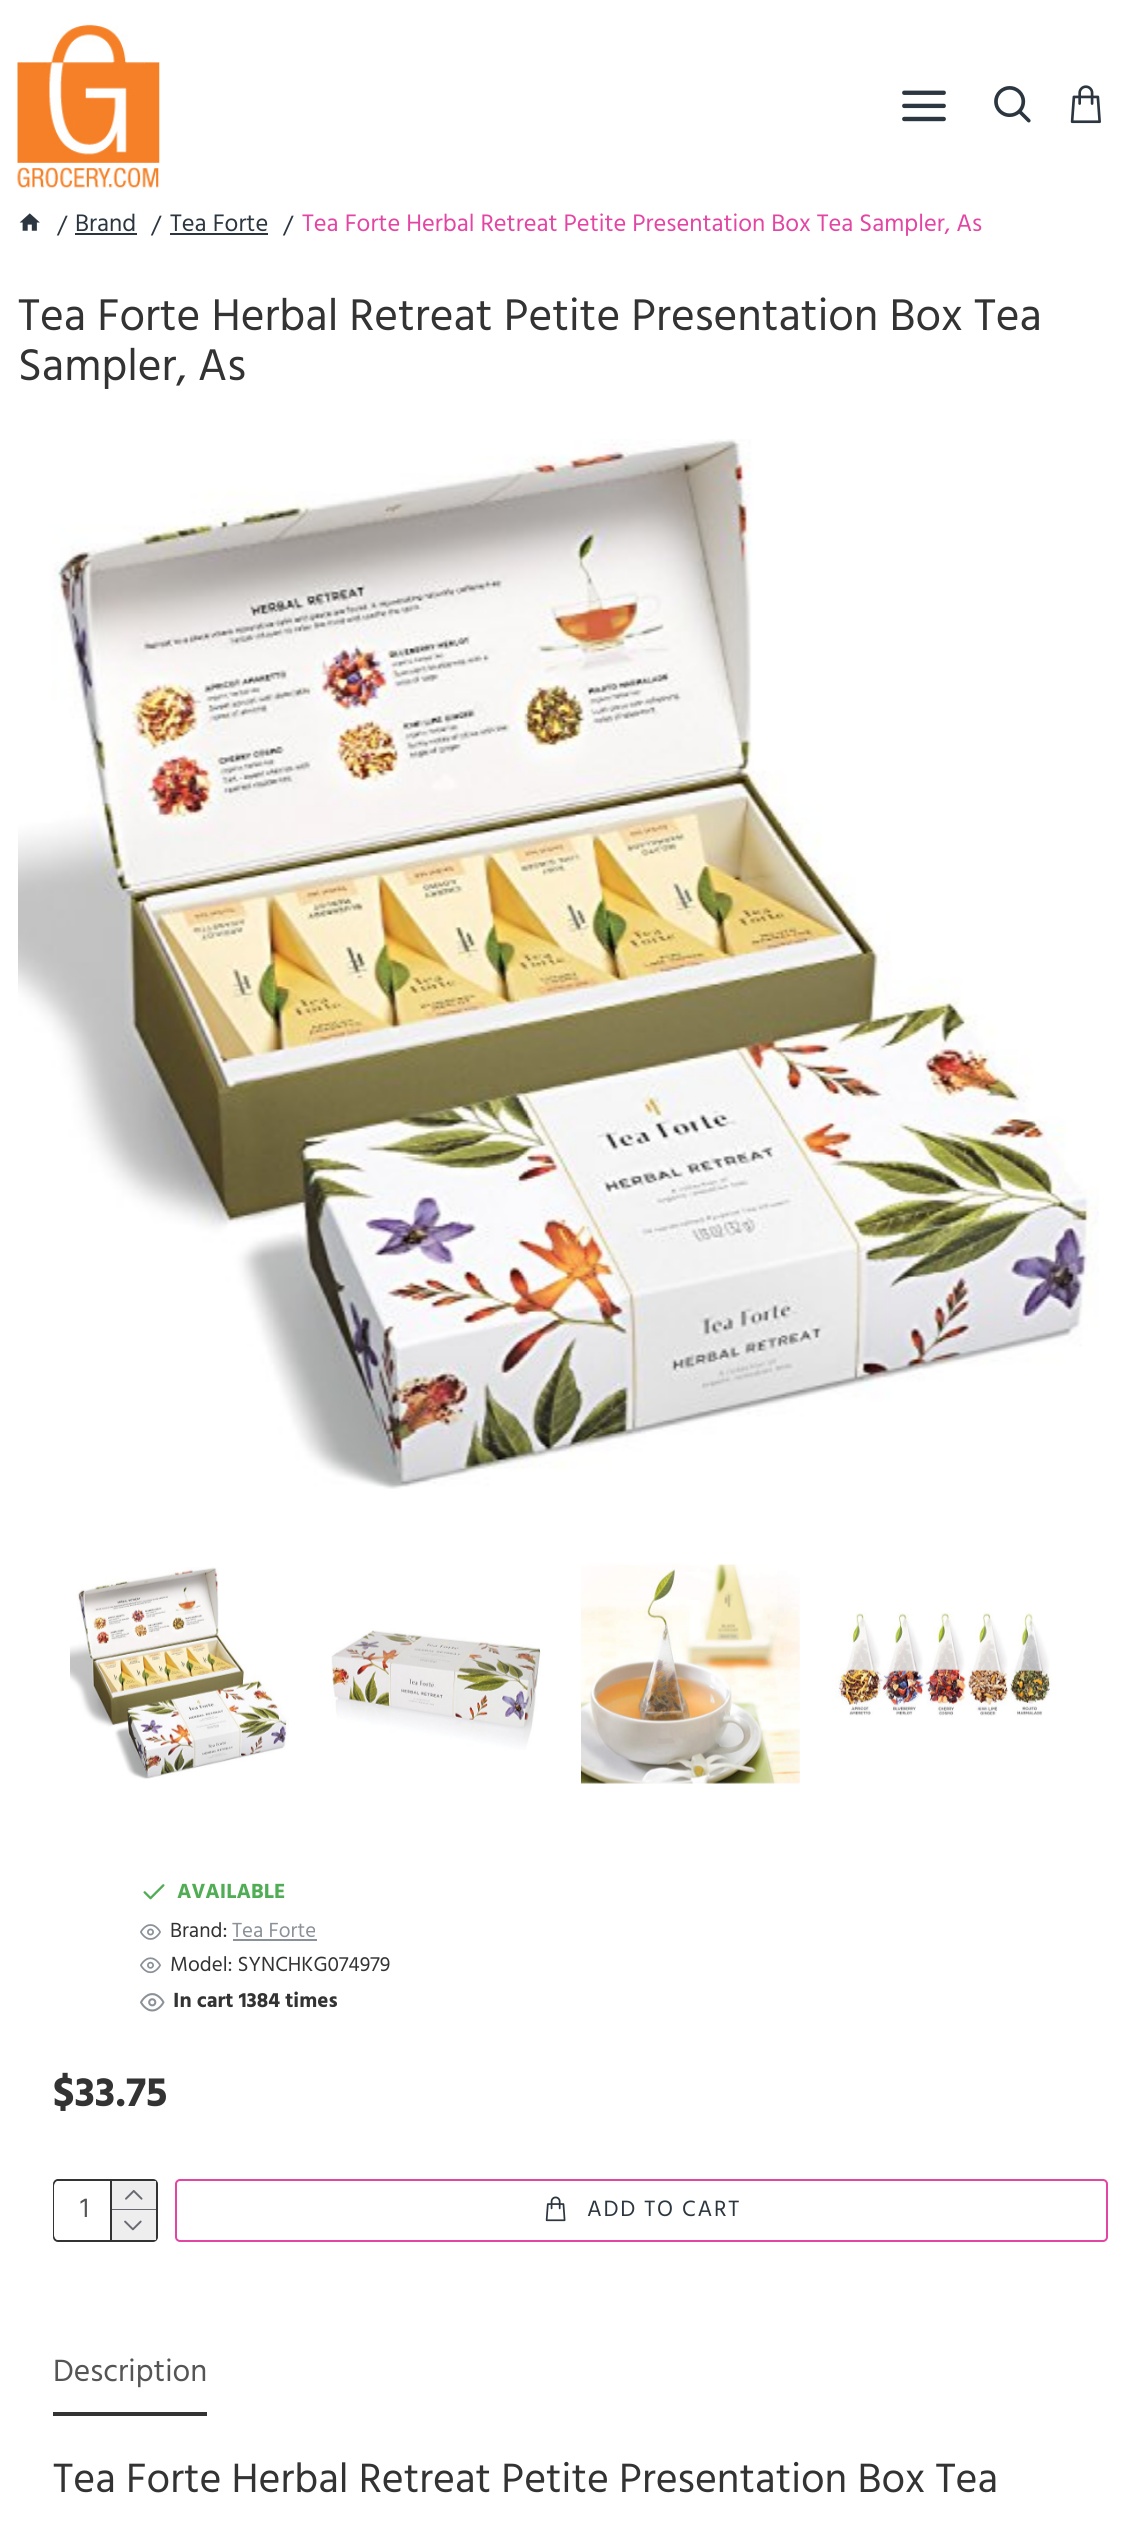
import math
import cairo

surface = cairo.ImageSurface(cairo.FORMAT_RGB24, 1125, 2529)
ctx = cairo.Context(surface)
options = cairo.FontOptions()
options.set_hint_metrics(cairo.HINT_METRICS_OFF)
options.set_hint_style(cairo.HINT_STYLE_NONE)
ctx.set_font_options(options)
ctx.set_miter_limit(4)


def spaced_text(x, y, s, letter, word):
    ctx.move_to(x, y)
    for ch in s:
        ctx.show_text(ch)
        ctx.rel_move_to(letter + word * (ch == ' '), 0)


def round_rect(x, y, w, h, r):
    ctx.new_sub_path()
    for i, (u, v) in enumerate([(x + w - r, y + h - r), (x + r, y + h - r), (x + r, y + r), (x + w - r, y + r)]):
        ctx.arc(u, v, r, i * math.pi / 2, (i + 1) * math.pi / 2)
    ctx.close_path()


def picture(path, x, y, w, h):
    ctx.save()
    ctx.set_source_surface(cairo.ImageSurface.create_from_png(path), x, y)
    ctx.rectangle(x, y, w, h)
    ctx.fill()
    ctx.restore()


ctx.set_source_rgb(1, 1, 1)
ctx.paint()
picture("img1.png", 17, 24, 143, 164)
picture("img2.png", 902, 90, 44, 32)
picture("img3.png", 994, 86, 37, 37)
picture("img4.png", 1070, 85, 31, 39)
picture("img5.png", 19, 213, 21, 18)
ctx.select_font_face("Hind")
ctx.set_font_size(24.5)
ctx.set_source_rgb(0.173, 0.212, 0.251)
ctx.move_to(57, 233)
ctx.show_text("/")
ctx.move_to(75, 231)
ctx.show_text("Brand")
ctx.rectangle(75, 233, 62, 2)
ctx.fill()
ctx.move_to(151, 233)
ctx.show_text("/")
ctx.move_to(170, 231)
ctx.show_text("Tea Forte")
ctx.rectangle(170, 233, 98, 2)
ctx.fill()
ctx.move_to(283, 233)
ctx.show_text("/")
ctx.set_source_rgb(0.89, 0.271, 0.639)
ctx.move_to(302, 231)
ctx.show_text("Tea Forte Herbal Retreat Petite Presentation Box Tea Sampler, As")
ctx.set_font_size(45.5)
ctx.set_source_rgb(0.2, 0.2, 0.2)
ctx.move_to(18, 330)
ctx.show_text("Tea Forte Herbal Retreat Petite Presentation Box Tea")
ctx.move_to(18, 380)
ctx.show_text("Sampler, As")
picture("img6.png", 18, 439, 1081, 1050)
picture("img7.png", 70, 1567, 219, 212)
picture("img8.png", 331, 1628, 210, 122)
picture("img9.png", 581, 1563, 219, 221)
picture("img10.png", 835, 1612, 217, 104)
picture("img11.png", 143, 1884, 22, 16)
ctx.select_font_face("Hind", cairo.FONT_SLANT_NORMAL, cairo.FONT_WEIGHT_BOLD)
ctx.set_font_size(21)
ctx.set_source_rgb(0.314, 0.678, 0.333)
ctx.move_to(177, 1898)
ctx.show_text("AVAILABLE")
picture("img12.png", 140, 1924, 21, 16)
ctx.select_font_face("Hind")
ctx.set_source_rgb(0.2, 0.2, 0.2)
ctx.move_to(170, 1937)
ctx.show_text("Brand:")
ctx.set_source_rgb(0.545, 0.569, 0.596)
ctx.move_to(232, 1937)
ctx.show_text("Tea Forte")
ctx.rectangle(233, 1939, 84, 2)
ctx.fill()
picture("img13.png", 140, 1957, 21, 17)
ctx.set_source_rgb(0.2, 0.2, 0.2)
ctx.move_to(170, 1971)
ctx.show_text("Model: SYNCHKG074979")
picture("img14.png", 140, 1993, 25, 19)
ctx.select_font_face("Hind", cairo.FONT_SLANT_NORMAL, cairo.FONT_WEIGHT_BOLD)
ctx.move_to(173, 2007)
ctx.show_text("In cart 1384 times")
ctx.set_font_size(42)
ctx.move_to(53, 2106)
ctx.show_text("$33.75")
round_rect(54, 2180, 103, 61, 4)
ctx.stroke()
ctx.set_source_rgb(1, 1, 1)
round_rect(54, 2181, 102, 59, 5)
ctx.fill()
ctx.select_font_face("Hind")
ctx.set_font_size(28)
ctx.set_source_rgb(0.333, 0.333, 0.333)
ctx.move_to(80, 2217)
ctx.show_text("1")
ctx.set_source_rgb(0.2, 0.2, 0.2)
ctx.rectangle(110, 2181, 2, 59)
ctx.fill()
ctx.set_source_rgb(0.933, 0.933, 0.933)
ctx.rectangle(112, 2181, 44, 28)
ctx.fill()
ctx.set_source_rgb(0.412, 0.412, 0.451)
ctx.rectangle(112, 2209, 44, 1)
ctx.fill()
picture("img15.png", 125, 2190, 18, 10)
ctx.set_source_rgb(0.933, 0.933, 0.933)
ctx.rectangle(112, 2210, 44, 30)
ctx.fill()
picture("img16.png", 124, 2220, 18, 11)
round_rect(176, 2180, 931, 61, 4)
ctx.set_source_rgb(0.89, 0.271, 0.639)
ctx.stroke()
picture("img17.png", 545, 2196, 21, 26)
ctx.set_font_size(22.75)
ctx.set_source_rgb(0.173, 0.212, 0.251)
spaced_text(587, 2216, "ADD TO CART", 1.75, 0)
ctx.set_source_rgb(0.2, 0.2, 0.2)
ctx.rectangle(53, 2412, 154, 4)
ctx.fill()
ctx.set_font_size(31.5)
ctx.set_source_rgb(0.333, 0.333, 0.333)
ctx.move_to(53, 2381)
ctx.show_text("Description")
ctx.set_font_size(42)
ctx.set_source_rgb(0.2, 0.2, 0.2)
ctx.move_to(53, 2492)
ctx.show_text("Tea Forte Herbal Retreat Petite Presentation Box Tea")
surface.write_to_png("page.png")
